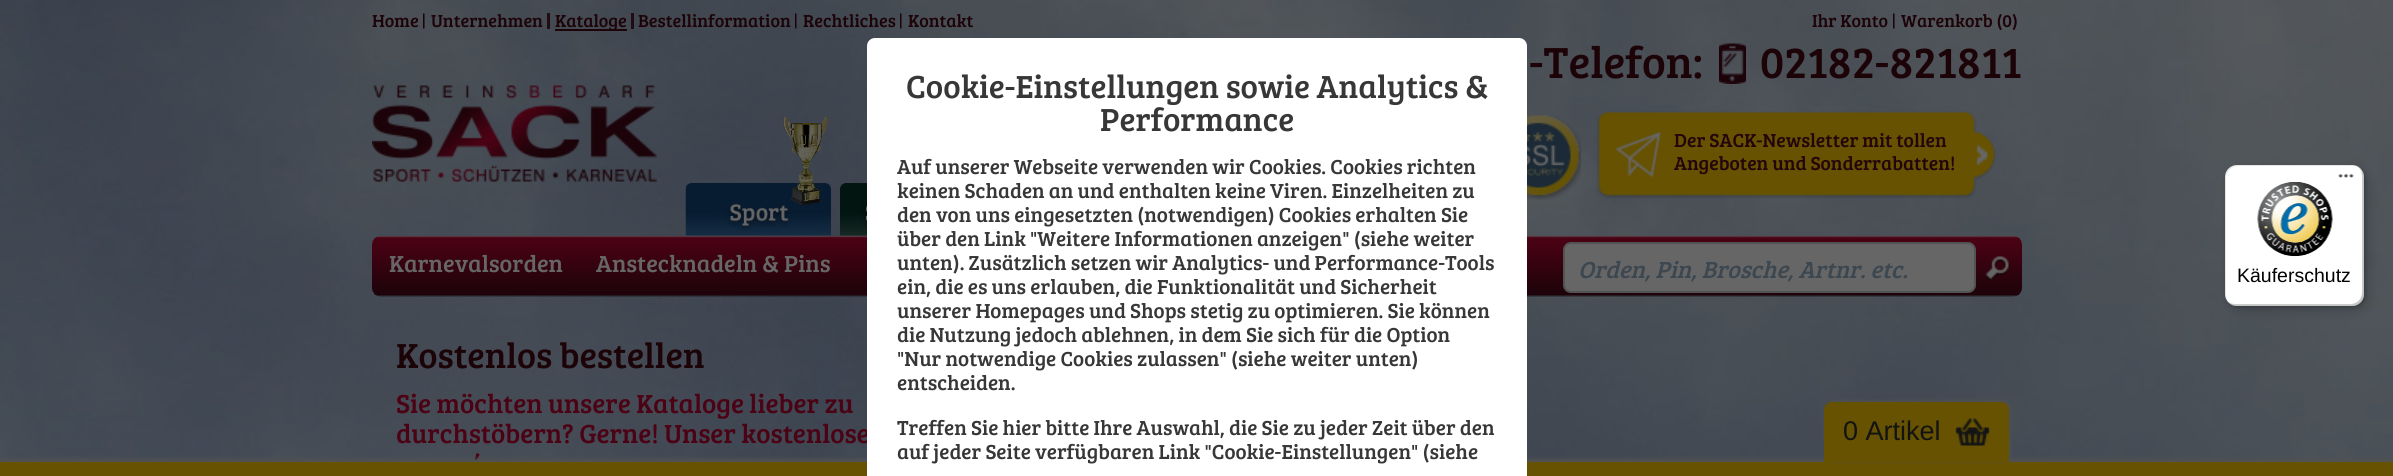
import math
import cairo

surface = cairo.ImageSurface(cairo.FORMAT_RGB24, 2393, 476)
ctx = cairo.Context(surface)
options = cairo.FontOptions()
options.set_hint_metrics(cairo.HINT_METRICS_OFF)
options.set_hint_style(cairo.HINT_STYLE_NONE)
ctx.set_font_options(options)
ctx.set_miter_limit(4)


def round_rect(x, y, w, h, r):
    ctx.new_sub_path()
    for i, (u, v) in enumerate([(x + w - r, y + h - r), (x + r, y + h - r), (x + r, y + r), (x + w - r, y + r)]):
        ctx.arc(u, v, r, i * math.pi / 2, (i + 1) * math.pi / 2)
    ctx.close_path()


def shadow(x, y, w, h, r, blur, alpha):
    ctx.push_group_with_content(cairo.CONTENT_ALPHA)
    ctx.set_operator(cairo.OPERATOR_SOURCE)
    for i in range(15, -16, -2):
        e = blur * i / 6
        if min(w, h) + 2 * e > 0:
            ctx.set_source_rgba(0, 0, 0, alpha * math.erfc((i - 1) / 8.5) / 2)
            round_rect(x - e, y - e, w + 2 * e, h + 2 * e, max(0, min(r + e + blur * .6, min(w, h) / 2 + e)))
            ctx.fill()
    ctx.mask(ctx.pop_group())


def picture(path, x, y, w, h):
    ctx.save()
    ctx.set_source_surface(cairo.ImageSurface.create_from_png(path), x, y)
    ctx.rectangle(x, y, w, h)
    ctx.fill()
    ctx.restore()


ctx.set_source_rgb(1, 1, 1)
ctx.paint()
picture("img14.png", 0, 0, 2393, 462)
ctx.select_font_face("Bree Serif")
ctx.set_font_size(18)
ctx.set_source_rgb(0.11, 0.012, 0.035)
ctx.move_to(372, 27)
ctx.show_text("Home")
picture("img1.png", 423, 13, 2, 16)
ctx.move_to(431, 27)
ctx.show_text("Unternehmen")
ctx.set_source_rgba(0.11, 0.012, 0.035, 0.87)
ctx.rectangle(547, 13, 3, 16)
ctx.fill()
ctx.set_source_rgb(0.11, 0.012, 0.035)
ctx.rectangle(555, 29, 72, 2)
ctx.fill()
ctx.move_to(555, 27)
ctx.show_text("Kataloge")
ctx.set_source_rgb(0.125, 0.047, 0.071)
ctx.rectangle(631, 13, 3, 16)
ctx.fill()
ctx.set_source_rgb(0.11, 0.012, 0.035)
ctx.move_to(638, 27)
ctx.show_text("Bestellinformation")
picture("img2.png", 795, 13, 2, 16)
ctx.move_to(803, 27)
ctx.show_text("Rechtliches")
picture("img3.png", 900, 13, 2, 16)
ctx.move_to(908, 27)
ctx.show_text("Kontakt")
ctx.move_to(1812, 27)
ctx.show_text("Ihr Konto")
picture("img4.png", 1893, 13, 2, 16)
ctx.move_to(1901, 27)
ctx.show_text("Warenkorb (0)")
picture("img5.png", 372, 85, 285, 97)
ctx.set_font_size(45)
ctx.move_to(1529, 78)
ctx.show_text("-Telefon:")
picture("img6.png", 1719, 43, 27, 41)
ctx.move_to(1760, 78)
ctx.show_text("02182-821811")
picture("img7.png", 1527, 115, 54, 85)
picture("img8.png", 1596, 111, 400, 88)
ctx.set_font_size(19.5)
ctx.set_source_rgb(0.141, 0.02, 0.043)
ctx.move_to(1674, 147)
ctx.show_text("Der SACK-Newsletter mit tollen")
ctx.move_to(1674, 170)
ctx.show_text("Angeboten und Sonderrabatten!")
picture("img9.png", 372, 235, 1650, 62)
picture("img11.png", 685, 183, 146, 53)
picture("img10.png", 783, 115, 45, 91)
picture("img12.png", 840, 183, 27, 53)
ctx.set_font_size(24)
ctx.set_source_rgb(0.4, 0.4, 0.4)
ctx.move_to(389, 272)
ctx.show_text("Karnevalsorden")
ctx.move_to(596, 272)
ctx.show_text("Anstecknadeln & Pins")
round_rect(1564, 243, 411, 49, 7)
ctx.fill_preserve()
ctx.set_source_rgb(0.325, 0.325, 0.325)
ctx.stroke()
ctx.select_font_face("Bree Serif", cairo.FONT_SLANT_ITALIC)
ctx.set_source_rgb(0.239, 0.278, 0.314)
ctx.move_to(1578, 278)
ctx.show_text("Orden, Pin, Brosche, Artnr. etc.")
picture("img13.png", 1985, 256, 25, 26)
picture("img15.png", 2020, 0, 2, 2)
ctx.select_font_face("Bree Serif")
ctx.set_font_size(36)
ctx.set_source_rgb(0.11, 0.012, 0.035)
ctx.move_to(396, 368)
ctx.show_text("Kostenlos bestellen")
ctx.set_font_size(27)
ctx.set_source_rgb(0.294, 0.008, 0.082)
ctx.move_to(396, 413)
ctx.show_text("Sie möchten unsere Kataloge lieber zu")
ctx.move_to(396, 443)
ctx.show_text("durchstöbern? Gerne! Unser kostenlose")
ctx.move_to(474, 473)
ctx.show_text("’")
ctx.set_source_rgb(0.322, 0.322, 0.318)
shadow(-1, 459, 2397, 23, 0, 2, 1)
ctx.set_source_rgb(0.4, 0.322, 0)
ctx.rectangle(0, 462, 2393, 14)
ctx.fill()
ctx.set_source_rgb(0.322, 0.322, 0.318)
shadow(1826, 401, 184, 60, 8, 2, 1)
ctx.set_source_rgb(0.4, 0.322, 0)
ctx.new_path()
ctx.move_to(1832, 402)
ctx.line_to(2001, 402)
ctx.curve_to(2005.5, 402, 2009, 405.5, 2009, 410)
ctx.line_to(2009, 462)
ctx.line_to(1824, 462)
ctx.line_to(1824, 410)
ctx.curve_to(1824, 405.5, 1827.5, 402, 1832, 402)
ctx.close_path()
ctx.fill()
picture("img16.png", 1955, 418, 35, 28)
ctx.select_font_face("Liberation Sans")
ctx.set_source_rgb(0.078, 0.078, 0.078)
ctx.move_to(1843, 440)
ctx.show_text("0 Artikel")
ctx.set_source_rgb(1, 1, 1)
round_rect(867, 38, 660, 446, 8)
ctx.fill()
ctx.select_font_face("Bree Serif")
ctx.set_font_size(33)
ctx.set_source_rgb(0.216, 0.216, 0.216)
ctx.move_to(906, 98)
ctx.show_text("Cookie-Einstellungen sowie Analytics &")
ctx.move_to(1100, 131)
ctx.show_text("Performance")
ctx.set_font_size(21)
ctx.move_to(897, 174)
ctx.show_text("Auf unserer Webseite verwenden wir Cookies. Cookies richten")
ctx.move_to(897, 198)
ctx.show_text("keinen Schaden an und enthalten keine Viren. Einzelheiten zu")
ctx.move_to(897, 222)
ctx.show_text("den von uns eingesetzten (notwendigen) Cookies erhalten Sie")
ctx.move_to(897, 246)
ctx.show_text("über den Link \"Weitere Informationen anzeigen\" (siehe weiter")
ctx.move_to(897, 270)
ctx.show_text("unten). Zusätzlich setzen wir Analytics- und Performance-Tools")
ctx.move_to(897, 294)
ctx.show_text("ein, die es uns erlauben, die Funktionalität und Sicherheit")
ctx.move_to(897, 318)
ctx.show_text("unserer Homepages und Shops stetig zu optimieren. Sie können")
ctx.move_to(897, 342)
ctx.show_text("die Nutzung jedoch ablehnen, in dem Sie sich für die Option")
ctx.move_to(897, 366)
ctx.show_text("\"Nur notwendige Cookies zulassen\" (siehe weiter unten)")
ctx.move_to(897, 390)
ctx.show_text("entscheiden.")
ctx.move_to(897, 435)
ctx.show_text("Treffen Sie hier bitte Ihre Auswahl, die Sie zu jeder Zeit über den")
ctx.move_to(897, 459)
ctx.show_text("auf jeder Seite verfügbaren Link \"Cookie-Einstellungen\" (siehe")
ctx.set_source_rgb(0, 0, 0)
shadow(2229, 170, 140, 141, 12, 6, 0.15)
shadow(2226, 167, 140, 141, 12, 1.5, 0.15)
ctx.set_source_rgb(1, 1, 1)
round_rect(2225, 165, 139, 141, 12)
ctx.fill()
ctx.set_source_rgba(0, 0, 0, 0.1)
ctx.new_path()
ctx.move_to(2238, 166)
ctx.line_to(2354, 166)
ctx.curve_to(2356, 166, 2358, 167, 2359, 168)
ctx.curve_to(2357, 166, 2355, 165, 2352, 165)
ctx.line_to(2237, 165)
ctx.curve_to(2230, 165, 2225, 170, 2225, 177)
ctx.line_to(2225, 294)
ctx.curve_to(2225, 296, 2226, 299, 2227, 301)
ctx.line_to(2226, 296)
ctx.line_to(2226, 178)
ctx.curve_to(2226, 172, 2231, 166, 2238, 166)
ctx.close_path()
ctx.fill()
ctx.set_source_rgba(0, 0, 0, 0.2)
ctx.new_path()
ctx.move_to(2228, 302)
ctx.curve_to(2230, 304, 2233, 306, 2237, 306)
ctx.line_to(2352, 306)
ctx.curve_to(2359, 306, 2364, 301, 2364, 294)
ctx.line_to(2364, 177)
ctx.curve_to(2364, 172, 2361, 168, 2357, 166)
ctx.curve_to(2360, 168, 2362, 172, 2362, 176)
ctx.line_to(2362, 292)
ctx.curve_to(2362, 299, 2357, 304, 2350, 304)
ctx.line_to(2235, 304)
ctx.curve_to(2232, 304, 2230, 303, 2228, 302)
ctx.close_path()
ctx.fill()
ctx.set_source_rgba(0.196, 0.196, 0.196, 0.2)
ctx.new_path()
ctx.move_to(2229, 303)
ctx.curve_to(2231, 305, 2234, 306, 2237, 306)
ctx.line_to(2352, 306)
ctx.curve_to(2359, 306, 2364, 301, 2364, 294)
ctx.line_to(2364, 177)
ctx.curve_to(2364, 174, 2363, 171, 2361, 169)
ctx.curve_to(2362, 171, 2363, 173, 2363, 176)
ctx.line_to(2363, 293)
ctx.curve_to(2363, 300, 2358, 305, 2351, 305)
ctx.line_to(2236, 305)
ctx.curve_to(2233, 305, 2231, 304, 2229, 303)
ctx.close_path()
ctx.fill()
ctx.set_source_rgba(1, 1, 1, 0.3)
ctx.new_path()
ctx.move_to(2229, 303)
ctx.curve_to(2231, 305, 2234, 306, 2237, 306)
ctx.line_to(2352, 306)
ctx.curve_to(2359, 306, 2364, 301, 2364, 294)
ctx.line_to(2364, 177)
ctx.curve_to(2364, 173, 2362, 170, 2360, 168)
ctx.curve_to(2362, 170, 2363, 173, 2363, 176)
ctx.line_to(2363, 293)
ctx.curve_to(2363, 300, 2358, 305, 2351, 305)
ctx.line_to(2236, 305)
ctx.curve_to(2233, 305, 2231, 304, 2229, 303)
ctx.close_path()
ctx.fill()
picture("img17.png", 2338, 174, 16, 4)
picture("img18.png", 2257, 182, 76, 75)
ctx.select_font_face("Liberation Sans")
ctx.set_font_size(19.5)
ctx.set_source_rgb(0, 0, 0)
ctx.move_to(2237, 282)
ctx.show_text("Käuferschutz")
surface.write_to_png("page.png")
